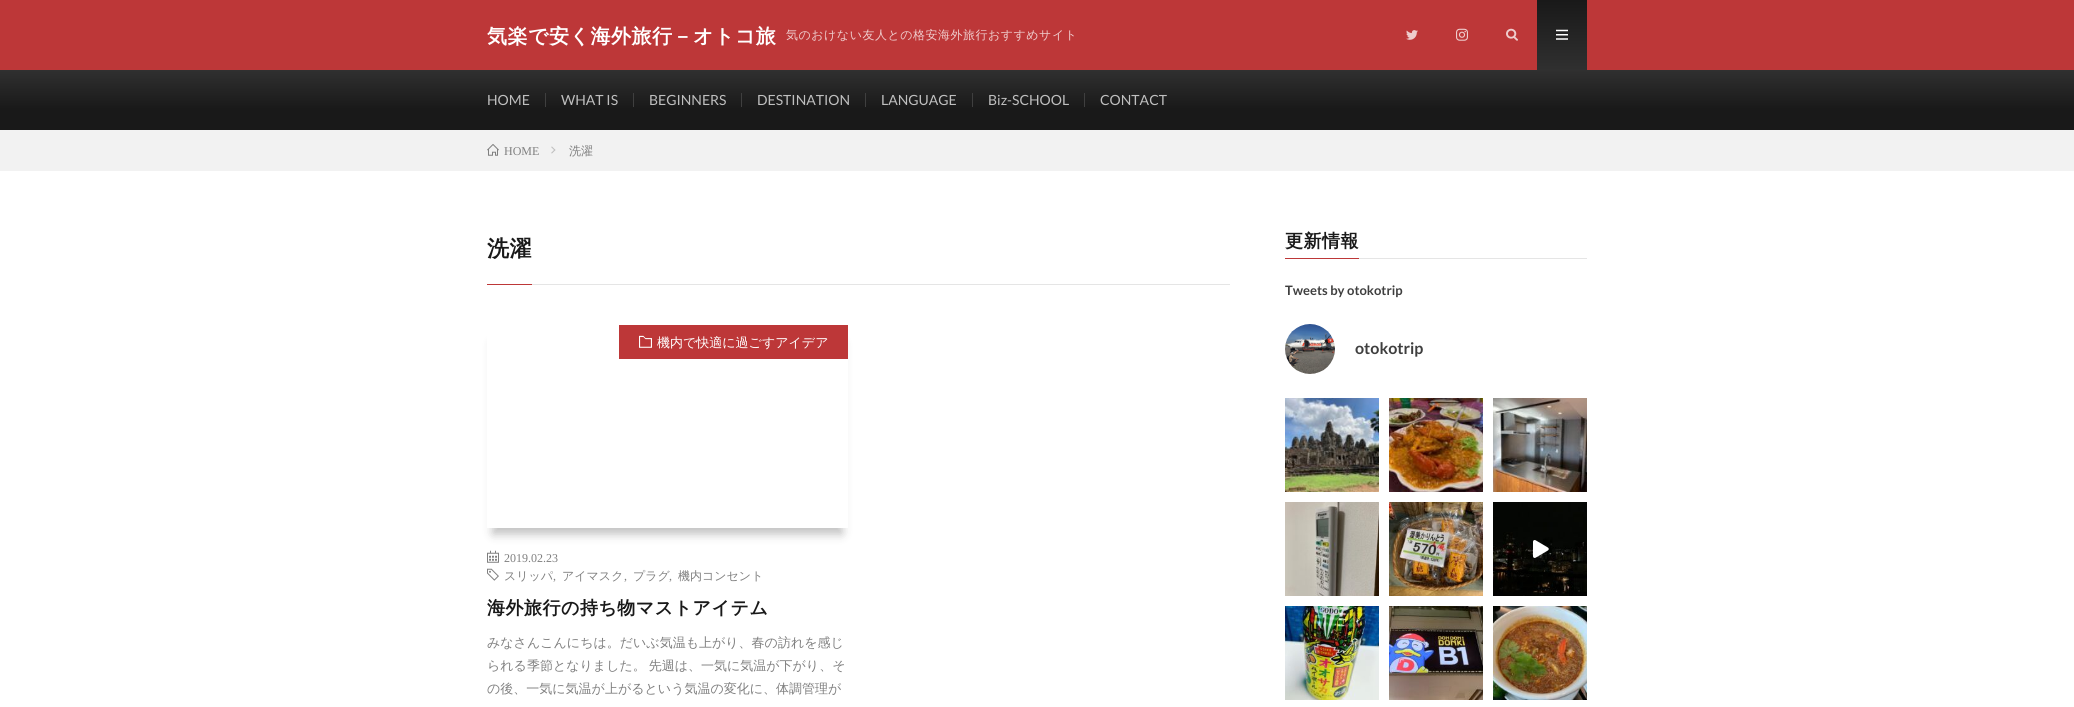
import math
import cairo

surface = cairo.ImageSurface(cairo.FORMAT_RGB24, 2074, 707)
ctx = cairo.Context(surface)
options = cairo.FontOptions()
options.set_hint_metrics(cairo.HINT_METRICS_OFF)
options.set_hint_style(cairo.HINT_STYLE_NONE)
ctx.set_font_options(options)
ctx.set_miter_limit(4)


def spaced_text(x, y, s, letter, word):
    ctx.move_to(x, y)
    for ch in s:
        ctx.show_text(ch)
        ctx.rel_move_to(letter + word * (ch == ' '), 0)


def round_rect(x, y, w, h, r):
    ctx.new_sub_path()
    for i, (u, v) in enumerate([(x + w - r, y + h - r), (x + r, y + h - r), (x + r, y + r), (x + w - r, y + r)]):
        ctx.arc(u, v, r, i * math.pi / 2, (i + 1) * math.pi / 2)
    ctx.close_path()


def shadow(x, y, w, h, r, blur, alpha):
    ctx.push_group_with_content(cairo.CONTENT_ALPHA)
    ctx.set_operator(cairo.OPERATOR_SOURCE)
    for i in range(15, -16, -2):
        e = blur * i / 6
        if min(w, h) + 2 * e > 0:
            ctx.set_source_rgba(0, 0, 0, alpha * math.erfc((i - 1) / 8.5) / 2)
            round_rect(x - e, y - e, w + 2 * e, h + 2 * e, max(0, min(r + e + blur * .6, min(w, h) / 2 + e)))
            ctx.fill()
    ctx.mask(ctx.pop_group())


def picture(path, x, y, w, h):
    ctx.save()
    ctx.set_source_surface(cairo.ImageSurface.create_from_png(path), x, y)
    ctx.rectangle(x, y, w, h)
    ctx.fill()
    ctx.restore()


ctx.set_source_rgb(1, 1, 1)
ctx.paint()
ctx.set_source_rgb(0.741, 0.216, 0.22)
ctx.rectangle(0, 0, 2074, 70)
ctx.fill()
ctx.select_font_face("WenQuanYi Zen Hei", cairo.FONT_SLANT_NORMAL, cairo.FONT_WEIGHT_BOLD)
ctx.set_font_size(20)
ctx.set_source_rgb(1, 1, 1)
spaced_text(487, 43, "気楽で安く海外旅行－オトコ旅", 0.5, 0)
ctx.select_font_face("WenQuanYi Zen Hei Medium")
ctx.set_font_size(12)
ctx.set_source_rgb(0.937, 0.804, 0.804)
spaced_text(786, 39, "気のおけない友人との格安海外旅行おすすめサイト", 0.5, 0)
picture("img1.png", 1406, 30, 12, 10)
picture("img2.png", 1456, 28, 12, 13)
picture("img3.png", 1506, 28, 12, 13)
gradient = cairo.LinearGradient(1562, 0, 1562, 70)
gradient.add_color_stop_rgba(0, 0.098, 0.098, 0.098, 1)
gradient.add_color_stop_rgba(1, 0.188, 0.188, 0.188, 1)
ctx.set_source(gradient)
ctx.rectangle(1537, 0, 50, 70)
ctx.fill()
picture("img4.png", 1556, 29, 12, 11)
gradient = cairo.LinearGradient(1037, 130, 1037, 70)
gradient.add_color_stop_rgba(0, 0.098, 0.098, 0.098, 1)
gradient.add_color_stop_rgba(0.35, 0.098, 0.098, 0.098, 1)
gradient.add_color_stop_rgba(1, 0.188, 0.188, 0.188, 1)
ctx.set_source(gradient)
ctx.rectangle(0, 70, 2074, 60)
ctx.fill()
ctx.select_font_face("Lato")
ctx.set_font_size(14)
ctx.set_source_rgb(0.749, 0.749, 0.749)
ctx.move_to(487, 105)
ctx.show_text("HOME")
ctx.set_source_rgb(0.247, 0.247, 0.247)
ctx.rectangle(545, 93, 1, 14)
ctx.fill()
ctx.set_source_rgb(0.749, 0.749, 0.749)
ctx.move_to(561, 105)
ctx.show_text("WHAT IS")
ctx.set_source_rgb(0.247, 0.247, 0.247)
ctx.rectangle(633, 93, 1, 14)
ctx.fill()
ctx.set_source_rgb(0.749, 0.749, 0.749)
ctx.move_to(649, 105)
ctx.show_text("BEGINNERS")
ctx.set_source_rgb(0.247, 0.247, 0.247)
ctx.rectangle(741, 93, 1, 14)
ctx.fill()
ctx.set_source_rgb(0.749, 0.749, 0.749)
ctx.move_to(757, 105)
ctx.show_text("DESTINATION")
ctx.set_source_rgb(0.247, 0.247, 0.247)
ctx.rectangle(865, 93, 1, 14)
ctx.fill()
ctx.set_source_rgb(0.749, 0.749, 0.749)
ctx.move_to(881, 105)
ctx.show_text("LANGUAGE")
ctx.set_source_rgb(0.247, 0.247, 0.247)
ctx.rectangle(972, 93, 1, 14)
ctx.fill()
ctx.set_source_rgb(0.749, 0.749, 0.749)
ctx.move_to(988, 105)
ctx.show_text("Biz-SCHOOL")
ctx.set_source_rgb(0.247, 0.247, 0.247)
ctx.rectangle(1084, 93, 1, 14)
ctx.fill()
ctx.set_source_rgb(0.749, 0.749, 0.749)
ctx.move_to(1100, 105)
ctx.show_text("CONTACT")
ctx.set_source_rgb(0.949, 0.949, 0.949)
ctx.rectangle(0, 130, 2074, 41)
ctx.fill()
picture("img5.png", 487, 144, 12, 12)
ctx.select_font_face("Liberation Serif")
ctx.set_font_size(12)
ctx.set_source_rgb(0.498, 0.498, 0.498)
ctx.move_to(504, 155)
ctx.show_text("HOME")
ctx.set_source_rgb(0.749, 0.749, 0.749)
ctx.new_path()
ctx.move_to(552, 146.5)
ctx.line_to(555.5, 150)
ctx.line_to(554.5, 150.5)
ctx.line_to(551, 147)
ctx.close_path()
ctx.fill()
ctx.new_path()
ctx.move_to(554.5, 149.5)
ctx.line_to(555.5, 150)
ctx.line_to(552, 153.5)
ctx.line_to(551, 153)
ctx.close_path()
ctx.fill()
ctx.select_font_face("WenQuanYi Zen Hei Medium")
ctx.set_source_rgb(0.498, 0.498, 0.498)
ctx.move_to(569, 155)
ctx.show_text("洗濯")
ctx.set_source_rgb(0.741, 0.216, 0.22)
ctx.rectangle(487, 284, 45, 1)
ctx.fill()
ctx.select_font_face("WenQuanYi Zen Hei", cairo.FONT_SLANT_NORMAL, cairo.FONT_WEIGHT_BOLD)
ctx.set_font_size(22)
ctx.set_source_rgb(0.098, 0.098, 0.098)
spaced_text(487, 256, "洗濯", 0.5, 0)
ctx.set_source_rgb(0.898, 0.898, 0.898)
ctx.rectangle(532, 284, 698, 1)
ctx.fill()
ctx.save()
ctx.set_fill_rule(cairo.FILL_RULE_EVEN_ODD)
ctx.new_path()
ctx.move_to(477, 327)
ctx.line_to(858, 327)
ctx.line_to(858, 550)
ctx.line_to(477, 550)
ctx.close_path()
ctx.move_to(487, 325)
ctx.line_to(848, 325)
ctx.line_to(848, 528)
ctx.line_to(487, 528)
ctx.close_path()
ctx.clip()
ctx.set_source_rgb(0, 0, 0)
shadow(493, 343, 349, 191, 0, 5, 0.25)
ctx.restore()
ctx.set_source_rgb(0.741, 0.216, 0.22)
ctx.rectangle(619, 325, 229, 34)
ctx.fill()
picture("img6.png", 639, 335, 13, 13)
ctx.select_font_face("WenQuanYi Zen Hei Medium")
ctx.set_font_size(13)
ctx.set_source_rgb(1, 1, 1)
ctx.move_to(657, 347)
ctx.show_text("機内で快適に過ごすアイデア")
picture("img7.png", 487, 550, 12, 13)
ctx.select_font_face("Liberation Serif")
ctx.set_font_size(12)
ctx.set_source_rgb(0.498, 0.498, 0.498)
ctx.move_to(504, 562)
ctx.show_text("2019.02.23")
picture("img8.png", 487, 568, 12, 13)
ctx.select_font_face("WenQuanYi Zen Hei Medium")
ctx.move_to(504, 580)
ctx.show_text("スリッパ")
ctx.select_font_face("Liberation Serif")
ctx.move_to(553, 580)
ctx.show_text(",")
ctx.select_font_face("WenQuanYi Zen Hei Medium")
ctx.move_to(562, 580)
ctx.show_text("アイマスク")
ctx.select_font_face("Liberation Serif")
ctx.move_to(624, 580)
ctx.show_text(",")
ctx.select_font_face("WenQuanYi Zen Hei Medium")
ctx.move_to(633, 580)
ctx.show_text("プラグ")
ctx.select_font_face("Liberation Serif")
ctx.move_to(669, 580)
ctx.show_text(",")
ctx.select_font_face("WenQuanYi Zen Hei Medium")
ctx.move_to(678, 580)
ctx.show_text("機内コンセント")
ctx.select_font_face("WenQuanYi Zen Hei", cairo.FONT_SLANT_NORMAL, cairo.FONT_WEIGHT_BOLD)
ctx.set_font_size(18)
ctx.set_source_rgb(0.098, 0.098, 0.098)
spaced_text(487, 614, "海外旅行の持ち物マストアイテム", 0.5, 0)
ctx.select_font_face("WenQuanYi Zen Hei Medium")
ctx.set_font_size(13)
ctx.set_source_rgb(0.498, 0.498, 0.498)
ctx.move_to(487, 647)
ctx.show_text("みなさんこんにちは。だいぶ気温も上がり、春の訪れを感じ")
spaced_text(487, 670, "られる季節となりました。 先週は、一気に気温が下がり、そ", 0, -1)
ctx.move_to(487, 693)
ctx.show_text("の後、一気に気温が上がるという気温の変化に、体調管理が")
ctx.select_font_face("WenQuanYi Zen Hei", cairo.FONT_SLANT_NORMAL, cairo.FONT_WEIGHT_BOLD)
ctx.set_font_size(18)
ctx.set_source_rgb(0.098, 0.098, 0.098)
spaced_text(1285, 247, "更新情報", 0.5, 0)
ctx.set_source_rgb(0.741, 0.216, 0.22)
ctx.rectangle(1285, 258, 74, 1)
ctx.fill()
ctx.set_source_rgb(0.898, 0.898, 0.898)
ctx.rectangle(1359, 258, 228, 1)
ctx.fill()
ctx.select_font_face("Lato", cairo.FONT_SLANT_NORMAL, cairo.FONT_WEIGHT_BOLD)
ctx.set_font_size(13)
ctx.set_source_rgb(0.247, 0.247, 0.247)
ctx.move_to(1285, 295)
ctx.show_text("Tweets by otokotrip")
picture("img9.png", 1285, 324, 50, 50)
ctx.set_font_size(16)
ctx.move_to(1355, 354)
ctx.show_text("otokotrip")
picture("img10.png", 1285, 398, 94, 94)
picture("img11.png", 1389, 398, 94, 94)
picture("img12.png", 1493, 398, 94, 94)
picture("img13.png", 1285, 502, 94, 94)
picture("img14.png", 1389, 502, 94, 94)
picture("img15.png", 1493, 502, 94, 94)
picture("img16.png", 1533, 540, 16, 18)
picture("img17.png", 1285, 606, 94, 94)
picture("img18.png", 1389, 606, 94, 94)
picture("img19.png", 1493, 606, 94, 94)
surface.write_to_png("page.png")
